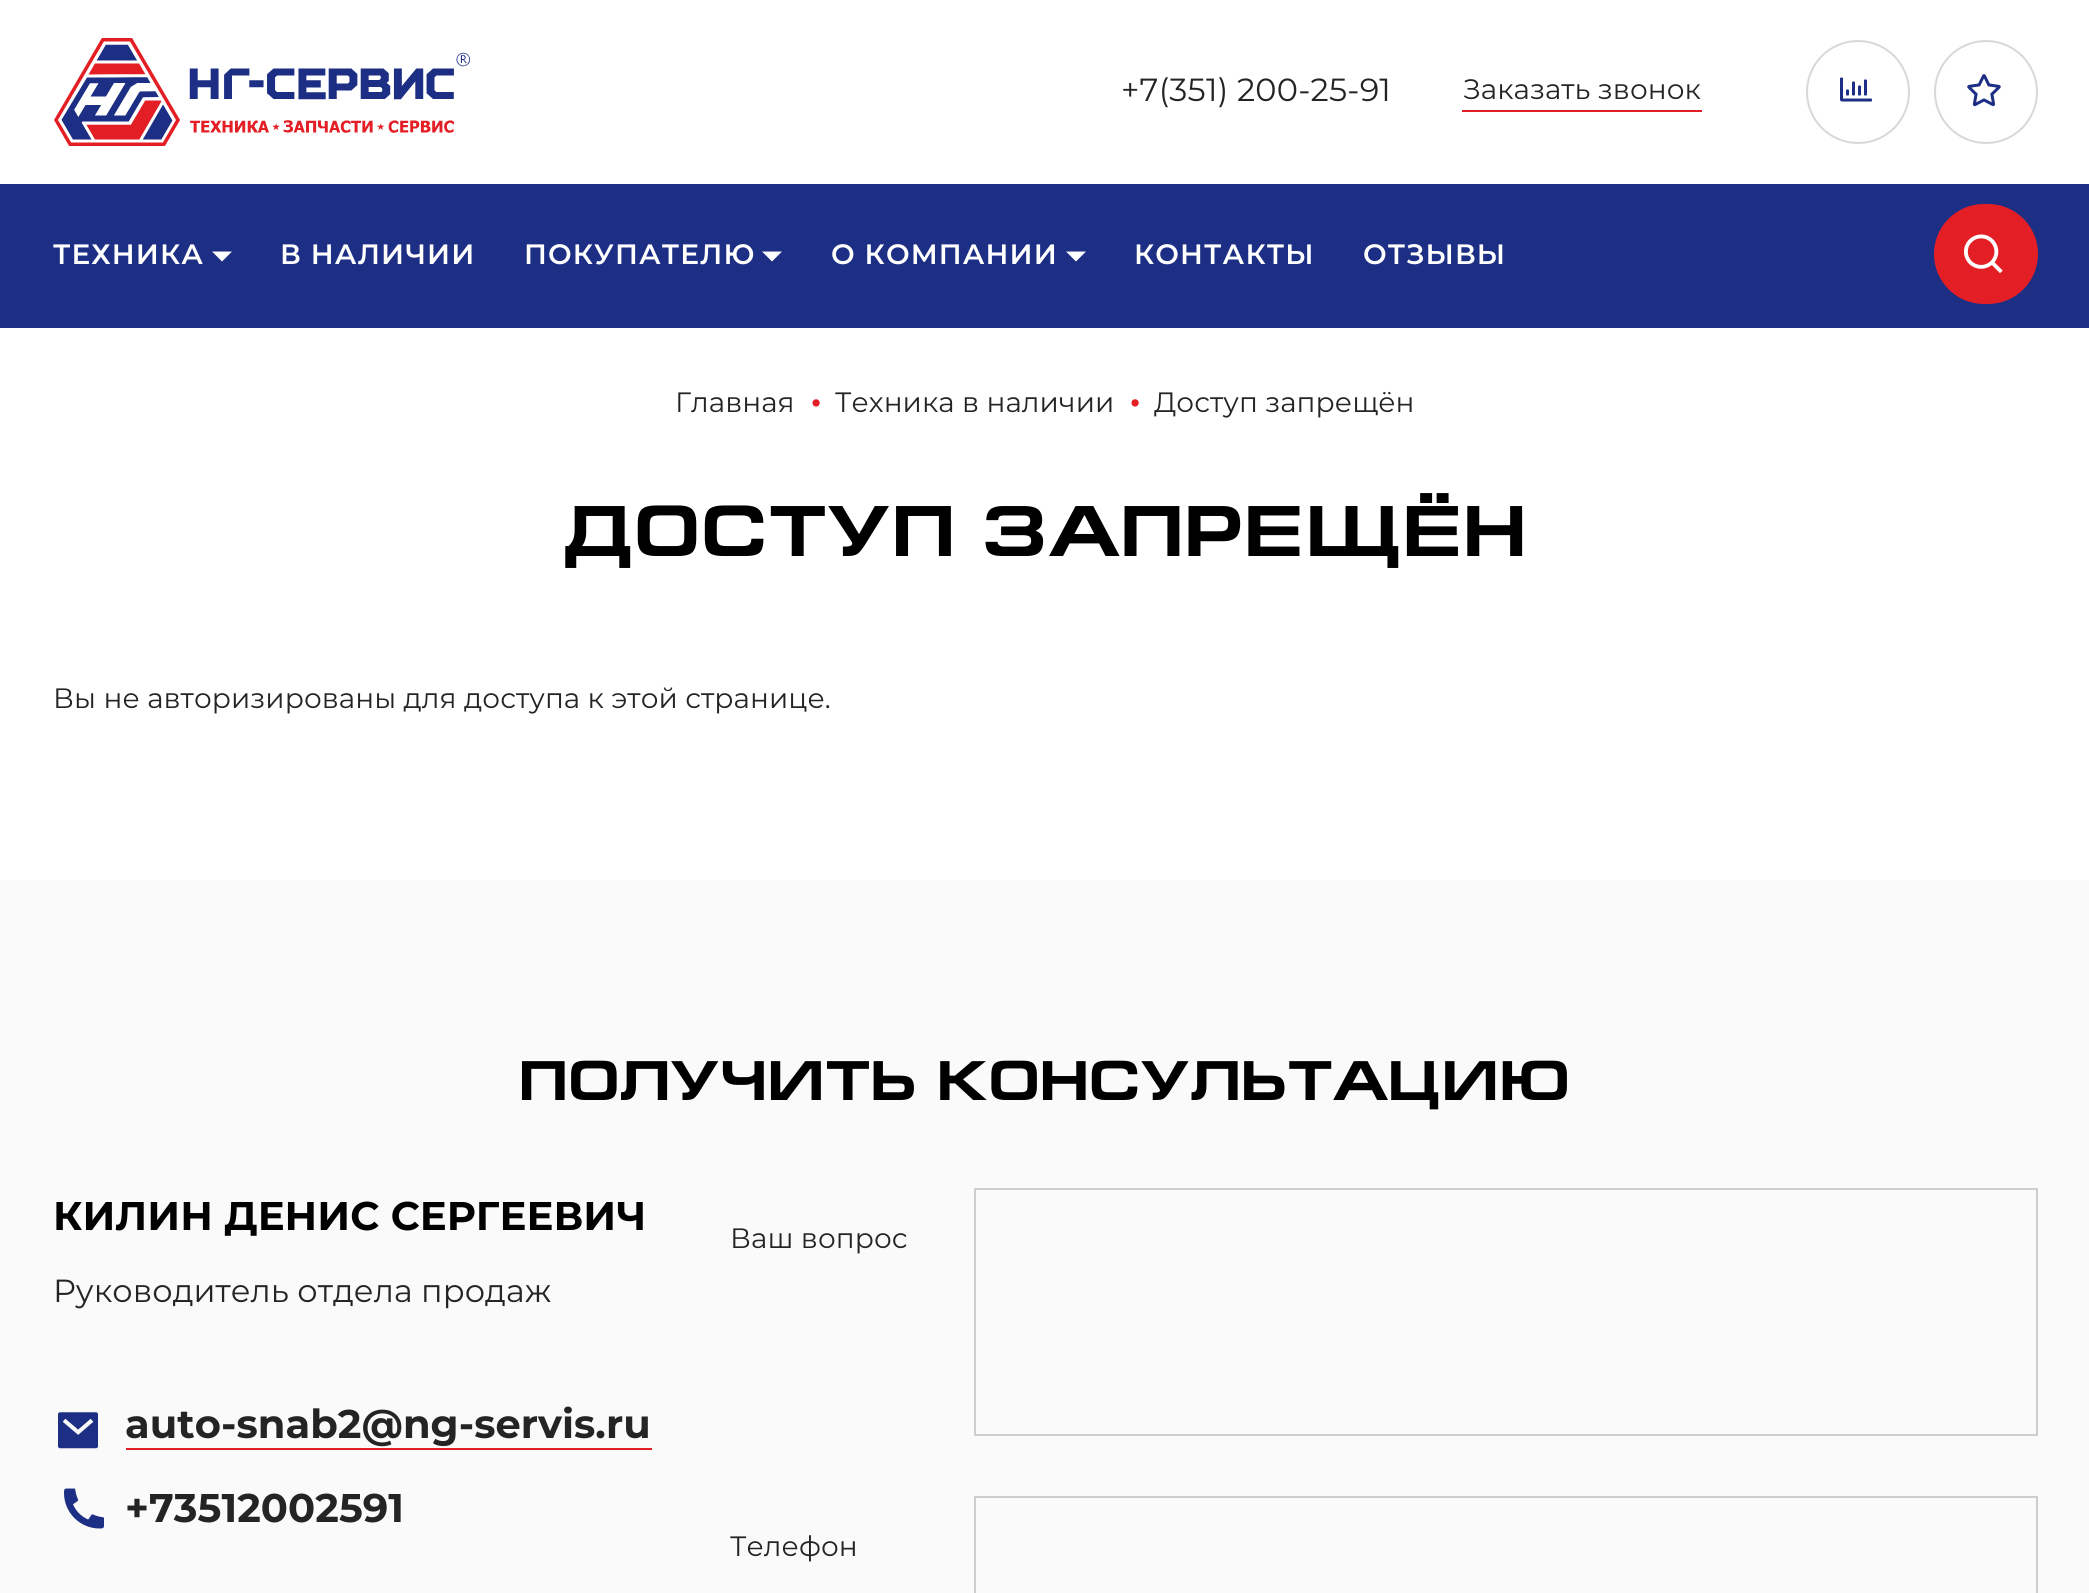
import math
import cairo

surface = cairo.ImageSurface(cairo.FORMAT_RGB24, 2089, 1593)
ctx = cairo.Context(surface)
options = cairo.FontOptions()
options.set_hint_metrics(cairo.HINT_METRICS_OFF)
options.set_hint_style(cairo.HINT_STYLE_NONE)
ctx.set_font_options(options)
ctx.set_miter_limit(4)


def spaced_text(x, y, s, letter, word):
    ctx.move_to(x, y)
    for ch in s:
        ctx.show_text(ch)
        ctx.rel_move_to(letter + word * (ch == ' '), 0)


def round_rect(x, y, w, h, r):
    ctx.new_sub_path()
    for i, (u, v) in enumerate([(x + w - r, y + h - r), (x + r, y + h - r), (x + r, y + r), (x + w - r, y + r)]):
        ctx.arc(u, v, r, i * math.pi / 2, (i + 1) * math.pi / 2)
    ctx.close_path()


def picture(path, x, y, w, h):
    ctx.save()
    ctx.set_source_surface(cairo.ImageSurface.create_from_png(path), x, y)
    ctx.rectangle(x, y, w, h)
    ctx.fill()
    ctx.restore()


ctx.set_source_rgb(1, 1, 1)
ctx.paint()
picture("img1.png", 54, 38, 416, 108)
ctx.select_font_face("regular")
ctx.set_font_size(32)
ctx.set_source_rgb(0.141, 0.141, 0.141)
spaced_text(1121, 101, "+7(351) 200-25-91", 0.2, 0)
ctx.set_source_rgb(0.89, 0.118, 0.141)
ctx.rectangle(1462, 110, 240, 2)
ctx.fill()
ctx.set_font_size(28)
ctx.set_source_rgb(0.141, 0.141, 0.141)
spaced_text(1463, 99, "Заказать звонок", 0.05, 0)
ctx.new_path()
ctx.arc(1858, 92, 51, 0, 2 * math.pi)
ctx.set_source_rgb(0.847, 0.847, 0.847)
ctx.stroke()
picture("img2.png", 1840, 77, 32, 25)
ctx.arc(1986, 92, 51, 0, 2 * math.pi)
ctx.stroke()
picture("img3.png", 1967, 74, 34, 33)
ctx.set_source_rgb(0.114, 0.184, 0.522)
ctx.rectangle(0, 184, 2089, 144)
ctx.fill()
ctx.select_font_face("Montserrat SemiBold")
ctx.set_source_rgb(1, 1, 1)
spaced_text(53, 264, "ТЕХНИКА", 1.1, 0)
ctx.new_path()
ctx.move_to(222, 261.5)
ctx.line_to(212, 251.5)
ctx.line_to(232, 251.5)
ctx.close_path()
ctx.fill()
spaced_text(280, 264, "В НАЛИЧИИ", 1.1, 0)
spaced_text(524, 264, "ПОКУПАТЕЛЮ", 1.1, 0)
ctx.new_path()
ctx.move_to(772, 261.5)
ctx.line_to(762, 251.5)
ctx.line_to(782, 251.5)
ctx.close_path()
ctx.fill()
spaced_text(831, 264, "О КОМПАНИИ", 1.1, 0)
ctx.new_path()
ctx.move_to(1076, 261.5)
ctx.line_to(1066, 251.5)
ctx.line_to(1086, 251.5)
ctx.close_path()
ctx.fill()
spaced_text(1134, 264, "КОНТАКТЫ", 1.1, 0)
spaced_text(1363, 264, "ОТЗЫВЫ", 1.1, 0)
ctx.set_source_rgb(0.89, 0.118, 0.141)
round_rect(1934, 204, 104, 100, 50)
ctx.fill()
picture("img4.png", 1964, 234, 39, 40)
ctx.select_font_face("regular")
ctx.set_source_rgb(0.141, 0.141, 0.141)
spaced_text(675, 412, "Главная", 0.05, 0)
ctx.set_font_size(48)
ctx.set_source_rgb(0.89, 0.118, 0.141)
spaced_text(809, 416, "•", 0.05, 0)
ctx.set_font_size(28)
ctx.set_source_rgb(0.141, 0.141, 0.141)
spaced_text(835, 412, "Техника в наличии", 0.05, 0)
ctx.set_font_size(48)
ctx.set_source_rgb(0.89, 0.118, 0.141)
spaced_text(1128, 416, "•", 0.05, 0)
ctx.set_font_size(28)
ctx.set_source_rgb(0.141, 0.141, 0.141)
spaced_text(1154, 412, "Доступ запрещён", 0.05, 0)
ctx.select_font_face("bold", cairo.FONT_SLANT_NORMAL, cairo.FONT_WEIGHT_BOLD)
ctx.set_font_size(72)
ctx.set_source_rgb(0, 0, 0)
spaced_text(563, 556, "ДОСТУП ЗАПРЕЩЁН", 1.5, 0)
ctx.select_font_face("regular")
ctx.set_font_size(28)
ctx.set_source_rgb(0.141, 0.141, 0.141)
spaced_text(53, 708, "Вы не авторизированы для доступа к этой странице.", 0.05, 0)
ctx.set_source_rgb(0.98, 0.98, 0.98)
ctx.rectangle(0, 880, 2089, 713)
ctx.fill()
ctx.select_font_face("bold", cairo.FONT_SLANT_NORMAL, cairo.FONT_WEIGHT_BOLD)
ctx.set_font_size(56)
ctx.set_source_rgb(0, 0, 0)
spaced_text(519, 1100, "ПОЛУЧИТЬ КОНСУЛЬТАЦИЮ", 0.6, 0)
ctx.select_font_face("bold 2", cairo.FONT_SLANT_NORMAL, cairo.FONT_WEIGHT_BOLD)
ctx.set_font_size(40)
spaced_text(53, 1230, "КИЛИН ДЕНИС СЕРГЕЕВИЧ", 0.05, 0)
ctx.select_font_face("regular")
ctx.set_font_size(32)
ctx.set_source_rgb(0.141, 0.141, 0.141)
spaced_text(53, 1302, "Руководитель отдела продаж", 0.05, 0)
picture("img5.png", 58, 1412, 40, 37)
ctx.select_font_face("bold 2", cairo.FONT_SLANT_NORMAL, cairo.FONT_WEIGHT_BOLD)
ctx.set_font_size(40)
spaced_text(125, 1438, "auto-snab2@ng-servis.ru", 0.05, 0)
ctx.set_source_rgb(0.89, 0.118, 0.141)
ctx.rectangle(126, 1448, 526, 2)
ctx.fill()
picture("img6.png", 64, 1488, 40, 41)
ctx.set_source_rgb(0.141, 0.141, 0.141)
spaced_text(125, 1522, "+73512002591", 0.05, 0)
ctx.select_font_face("regular")
ctx.set_font_size(28)
spaced_text(730, 1248, "Ваш вопрос", 0.05, 0)
ctx.rectangle(975, 1189, 1062, 246)
ctx.set_source_rgb(0.808, 0.808, 0.808)
ctx.stroke()
ctx.set_source_rgb(0.141, 0.141, 0.141)
spaced_text(730, 1556, "Телефон", 0.05, 0)
ctx.rectangle(975, 1497, 1062, 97)
ctx.set_source_rgb(0.808, 0.808, 0.808)
ctx.stroke()
surface.write_to_png("page.png")
